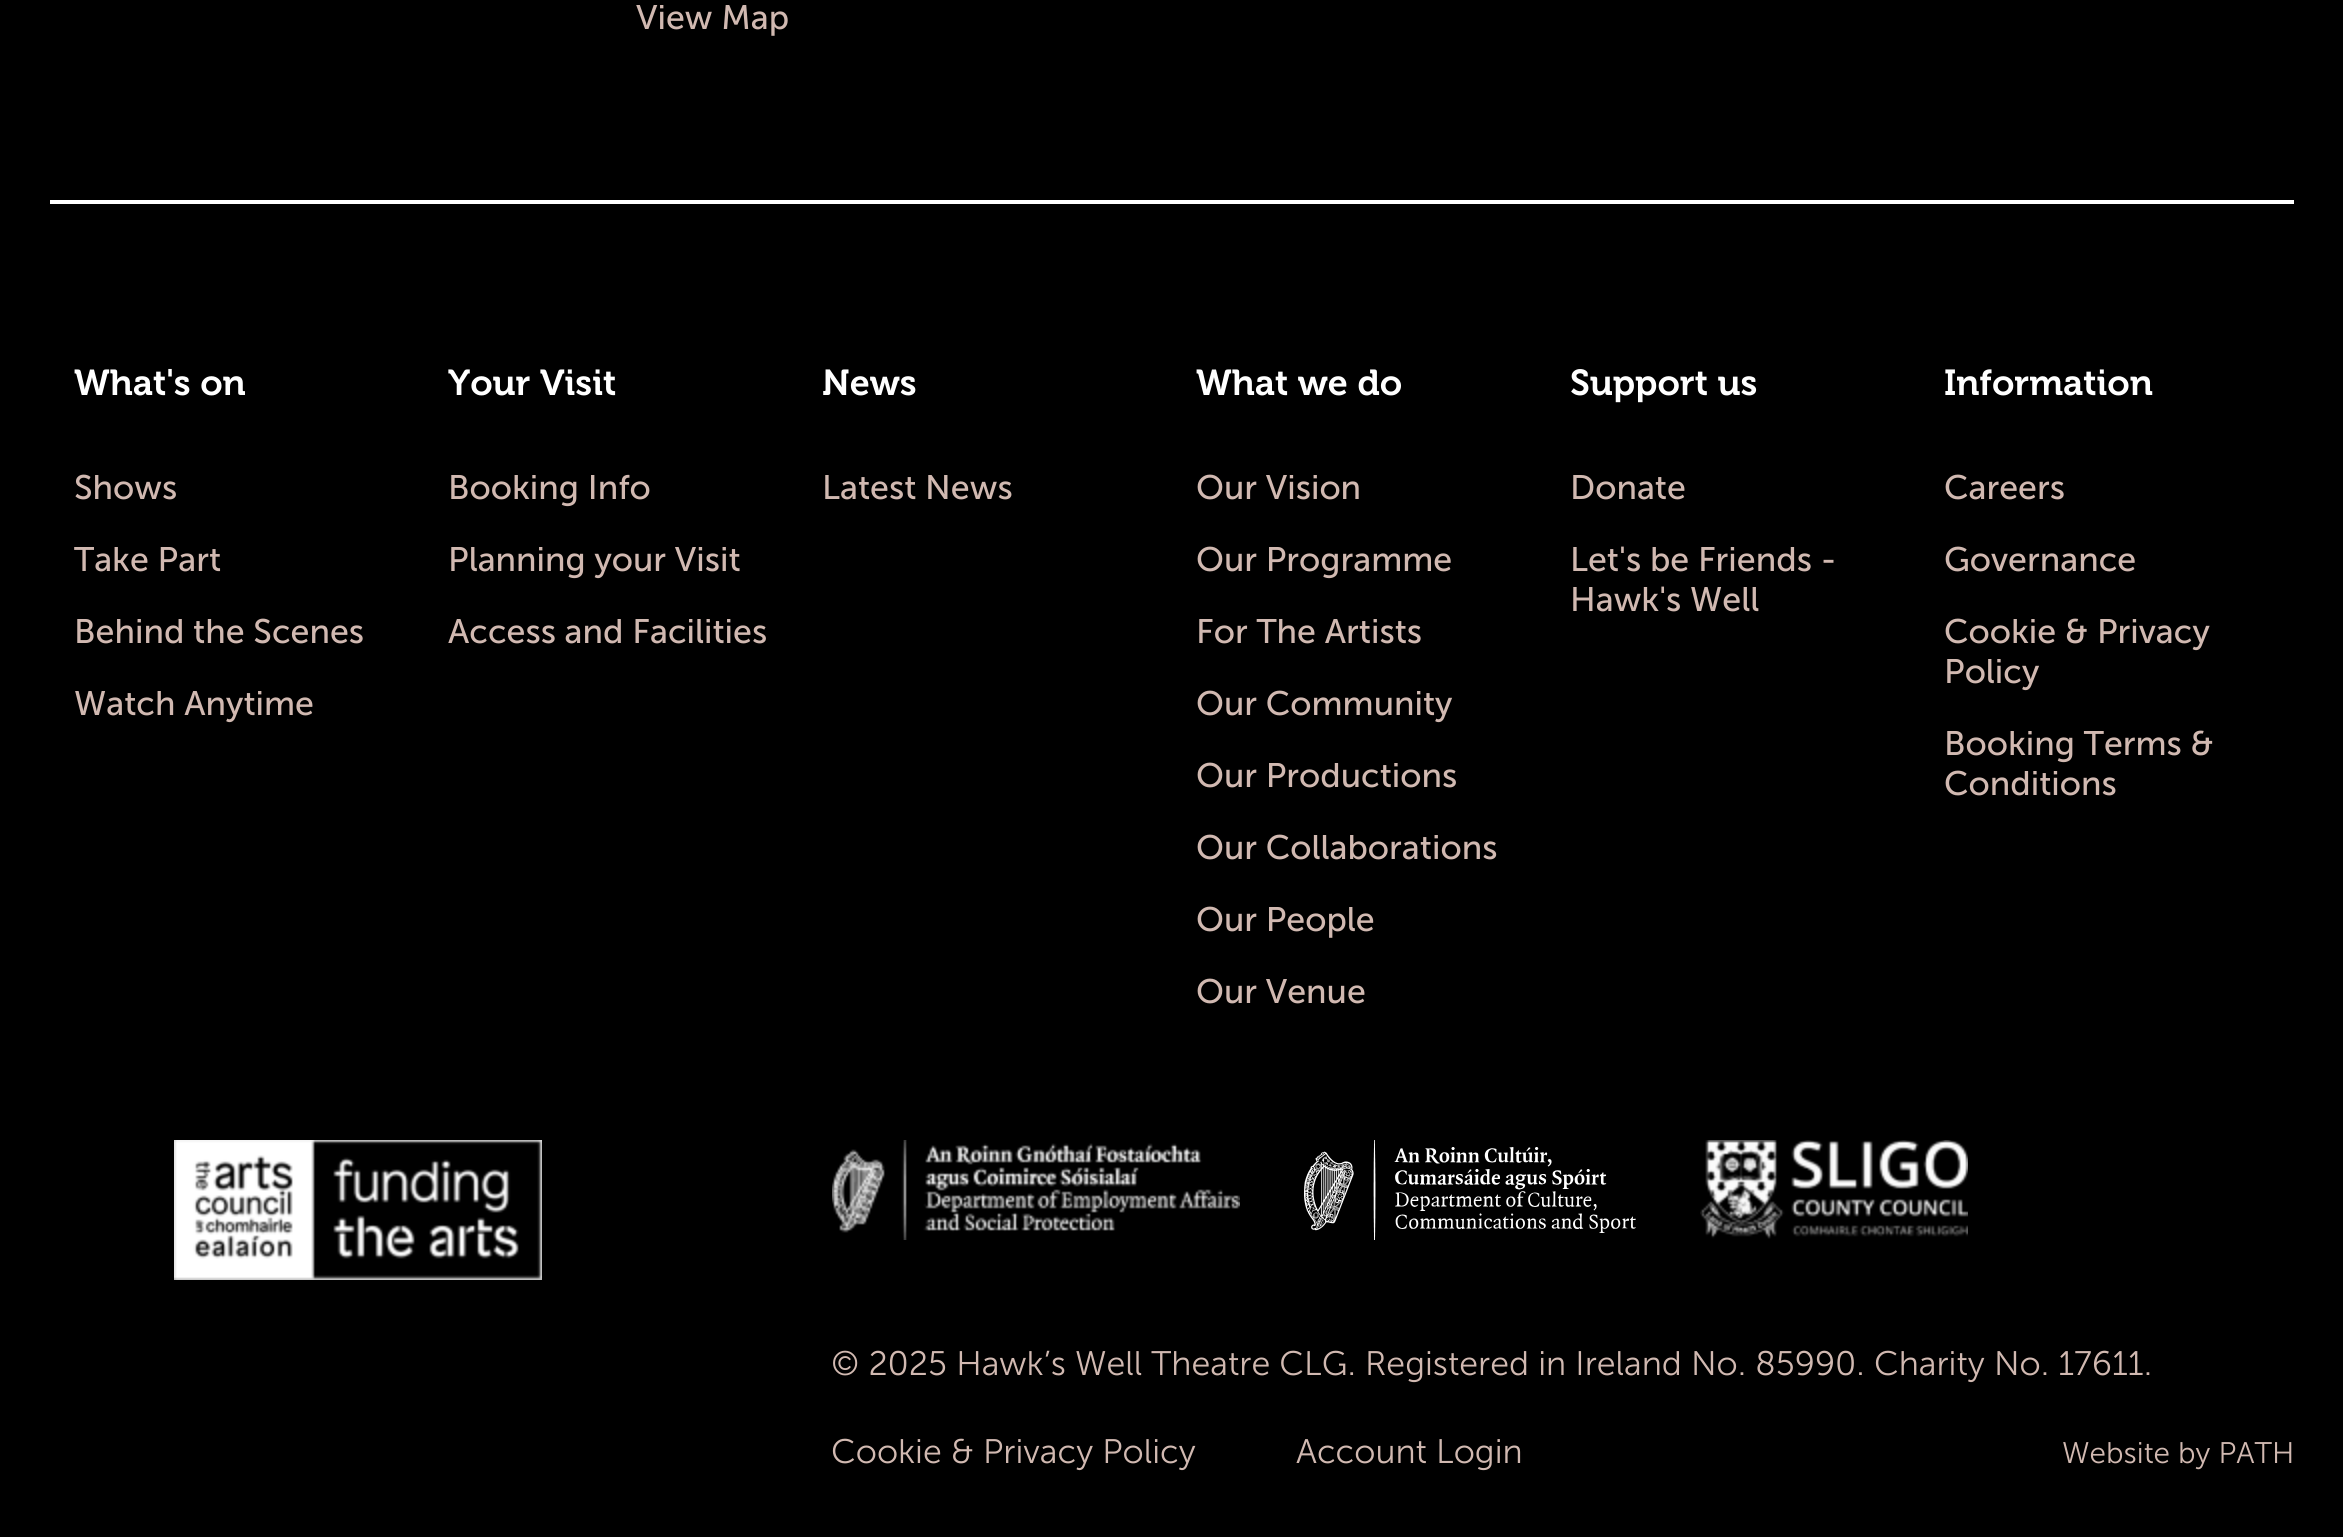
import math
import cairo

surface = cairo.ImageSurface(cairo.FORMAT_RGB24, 2343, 1537)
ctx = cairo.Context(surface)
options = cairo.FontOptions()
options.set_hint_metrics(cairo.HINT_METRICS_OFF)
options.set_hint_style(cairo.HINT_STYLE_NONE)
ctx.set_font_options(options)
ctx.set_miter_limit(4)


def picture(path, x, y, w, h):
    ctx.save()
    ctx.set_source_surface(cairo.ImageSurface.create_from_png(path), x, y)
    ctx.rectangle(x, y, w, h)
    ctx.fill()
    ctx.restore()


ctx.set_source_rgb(0, 0, 0)
ctx.paint()
ctx.select_font_face("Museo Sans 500")
ctx.set_font_size(34)
ctx.set_source_rgb(0.82, 0.725, 0.694)
ctx.move_to(636, 29)
ctx.show_text("View Map")
ctx.set_source_rgb(1, 1, 1)
ctx.rectangle(50, 200, 2244, 4)
ctx.fill()
ctx.select_font_face("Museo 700 SemiBold")
ctx.set_font_size(36)
ctx.move_to(74, 395)
ctx.show_text("What's on")
ctx.select_font_face("Museo Sans 500")
ctx.set_font_size(34)
ctx.set_source_rgb(0.82, 0.725, 0.694)
ctx.move_to(74, 499)
ctx.show_text("Shows")
ctx.move_to(74, 571)
ctx.show_text("Take Part")
ctx.move_to(74, 643)
ctx.show_text("Behind the Scenes")
ctx.move_to(74, 715)
ctx.show_text("Watch Anytime")
ctx.select_font_face("Museo 700 SemiBold")
ctx.set_font_size(36)
ctx.set_source_rgb(1, 1, 1)
ctx.move_to(448, 395)
ctx.show_text("Your Visit")
ctx.select_font_face("Museo Sans 500")
ctx.set_font_size(34)
ctx.set_source_rgb(0.82, 0.725, 0.694)
ctx.move_to(448, 499)
ctx.show_text("Booking Info")
ctx.move_to(448, 571)
ctx.show_text("Planning your Visit")
ctx.move_to(448, 643)
ctx.show_text("Access and Facilities")
ctx.select_font_face("Museo 700 SemiBold")
ctx.set_font_size(36)
ctx.set_source_rgb(1, 1, 1)
ctx.move_to(822, 395)
ctx.show_text("News")
ctx.select_font_face("Museo Sans 500")
ctx.set_font_size(34)
ctx.set_source_rgb(0.82, 0.725, 0.694)
ctx.move_to(822, 499)
ctx.show_text("Latest News")
ctx.select_font_face("Museo 700 SemiBold")
ctx.set_font_size(36)
ctx.set_source_rgb(1, 1, 1)
ctx.move_to(1196, 395)
ctx.show_text("What we do")
ctx.select_font_face("Museo Sans 500")
ctx.set_font_size(34)
ctx.set_source_rgb(0.82, 0.725, 0.694)
ctx.move_to(1196, 499)
ctx.show_text("Our Vision")
ctx.move_to(1196, 571)
ctx.show_text("Our Programme")
ctx.move_to(1196, 643)
ctx.show_text("For The Artists")
ctx.move_to(1196, 715)
ctx.show_text("Our Community")
ctx.move_to(1196, 787)
ctx.show_text("Our Productions")
ctx.move_to(1196, 859)
ctx.show_text("Our Collaborations")
ctx.move_to(1196, 931)
ctx.show_text("Our People")
ctx.move_to(1196, 1003)
ctx.show_text("Our Venue")
ctx.select_font_face("Museo 700 SemiBold")
ctx.set_font_size(36)
ctx.set_source_rgb(1, 1, 1)
ctx.move_to(1570, 395)
ctx.show_text("Support us")
ctx.select_font_face("Museo Sans 500")
ctx.set_font_size(34)
ctx.set_source_rgb(0.82, 0.725, 0.694)
ctx.move_to(1570, 499)
ctx.show_text("Donate")
ctx.move_to(1570, 571)
ctx.show_text("Let's be Friends -")
ctx.move_to(1570, 611)
ctx.show_text("Hawk's Well")
ctx.select_font_face("Museo 700 SemiBold")
ctx.set_font_size(36)
ctx.set_source_rgb(1, 1, 1)
ctx.move_to(1944, 395)
ctx.show_text("Information")
ctx.select_font_face("Museo Sans 500")
ctx.set_font_size(34)
ctx.set_source_rgb(0.82, 0.725, 0.694)
ctx.move_to(1944, 499)
ctx.show_text("Careers")
ctx.move_to(1944, 571)
ctx.show_text("Governance")
ctx.move_to(1944, 643)
ctx.show_text("Cookie & Privacy")
ctx.move_to(1944, 683)
ctx.show_text("Policy")
ctx.move_to(1944, 755)
ctx.show_text("Booking Terms &")
ctx.move_to(1944, 795)
ctx.show_text("Conditions")
picture("img1.png", 174, 1140, 368, 140)
picture("img2.png", 832, 1140, 408, 100)
picture("img3.png", 1304, 1140, 332, 100)
picture("img4.png", 1700, 1140, 268, 99)
ctx.select_font_face("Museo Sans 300 Light")
ctx.move_to(831, 1375)
ctx.show_text("© 2025 Hawk’s Well Theatre CLG. Registered in Ireland No. 85990. Charity No. 17611.")
ctx.move_to(831, 1463)
ctx.show_text("Cookie & Privacy Policy")
ctx.move_to(1296, 1463)
ctx.show_text("Account Login")
ctx.set_font_size(29.75)
ctx.move_to(2062, 1463)
ctx.show_text("Website by PATH")
surface.write_to_png("page.png")
